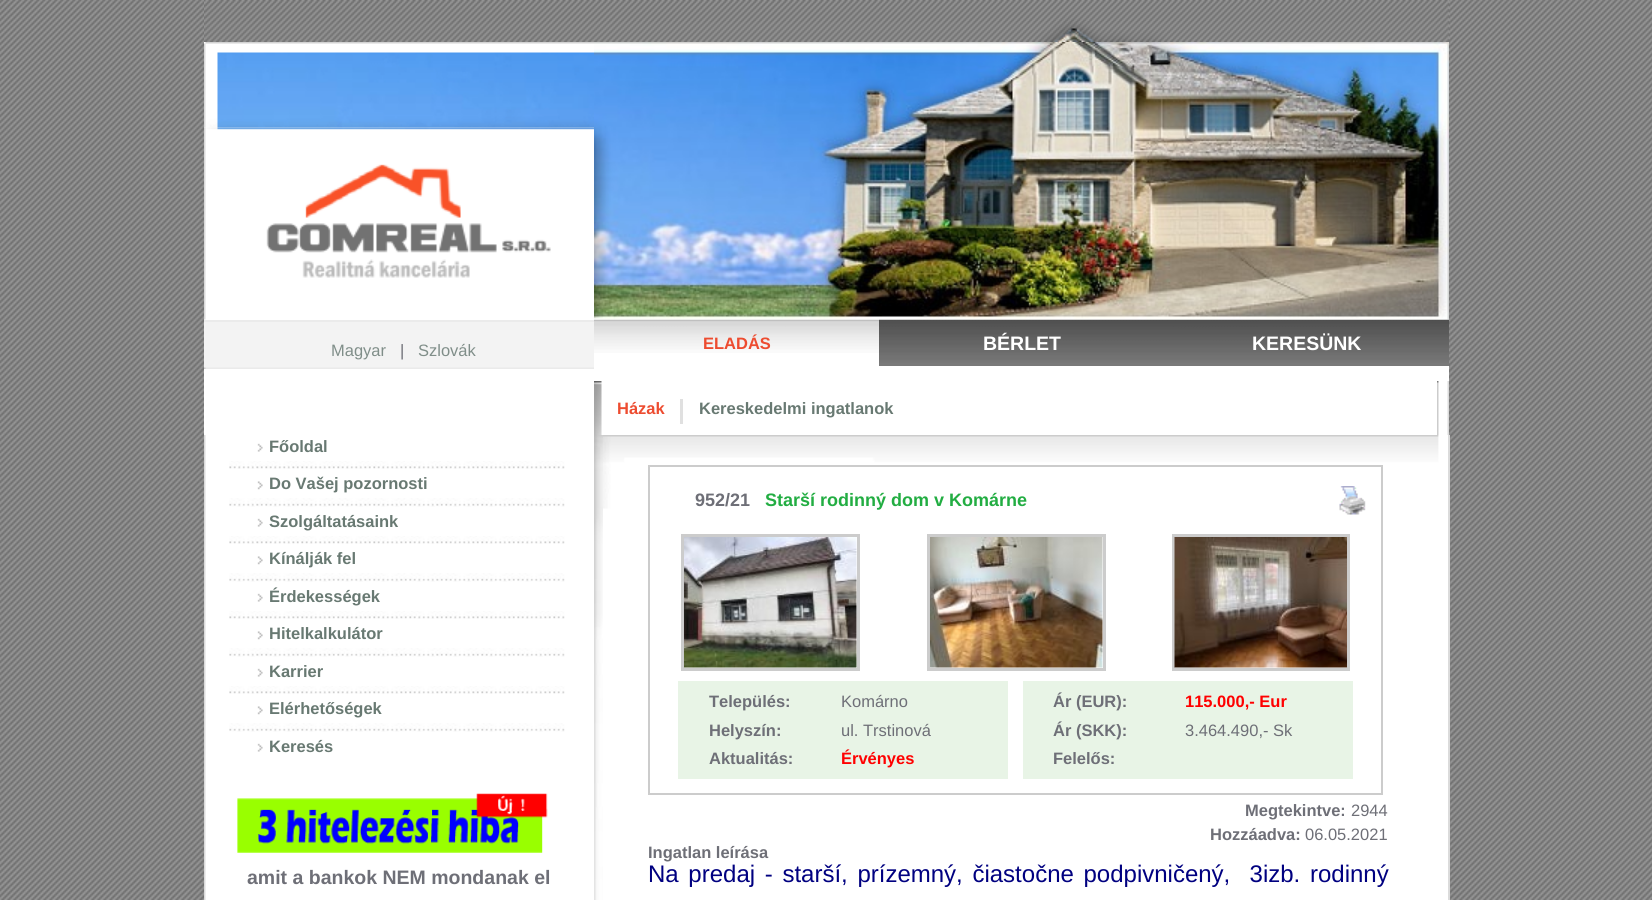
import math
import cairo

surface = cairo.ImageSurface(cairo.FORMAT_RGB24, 1652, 900)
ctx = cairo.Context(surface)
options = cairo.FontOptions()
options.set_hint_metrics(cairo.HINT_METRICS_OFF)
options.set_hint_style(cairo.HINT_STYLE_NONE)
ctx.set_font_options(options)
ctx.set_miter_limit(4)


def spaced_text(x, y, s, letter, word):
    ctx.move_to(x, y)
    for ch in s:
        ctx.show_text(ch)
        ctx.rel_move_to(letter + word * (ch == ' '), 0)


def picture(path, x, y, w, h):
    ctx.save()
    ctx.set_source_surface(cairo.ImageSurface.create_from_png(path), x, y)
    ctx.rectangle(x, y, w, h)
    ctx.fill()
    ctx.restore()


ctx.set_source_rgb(1, 1, 1)
ctx.paint()
picture("img1.png", 0, 0, 1652, 900)
ctx.set_source_rgb(1, 1, 1)
ctx.rectangle(204, 127, 1245, 773)
ctx.fill()
picture("img2.png", 204, 0, 1245, 42)
picture("img3.png", 204, 42, 390, 86)
picture("img4.png", 204, 127, 390, 193)
picture("img7.png", 594, 319, 285, 34)
picture("img8.png", 879, 319, 285, 47)
picture("img9.png", 1164, 319, 285, 47)
picture("img5.png", 594, 42, 855, 278)
ctx.set_source_rgb(0.953, 0.953, 0.953)
ctx.rectangle(204, 322, 390, 46)
ctx.fill()
ctx.set_source_rgb(0.918, 0.918, 0.918)
ctx.rectangle(204, 320, 390, 2)
ctx.fill()
ctx.select_font_face("Liberation Sans")
ctx.set_font_size(16.5)
ctx.set_source_rgb(0.502, 0.557, 0.537)
ctx.move_to(331, 356)
ctx.show_text("Magyar")
ctx.set_source_rgb(0.431, 0.435, 0.467)
ctx.move_to(400, 356)
ctx.show_text("|")
ctx.set_source_rgb(0.502, 0.557, 0.537)
ctx.move_to(418, 356)
ctx.show_text("Szlovák")
picture("img6.png", 204, 367, 390, 2)
ctx.select_font_face("Liberation Sans", cairo.FONT_SLANT_NORMAL, cairo.FONT_WEIGHT_BOLD)
ctx.set_source_rgb(0.929, 0.298, 0.188)
ctx.move_to(703, 349)
ctx.show_text("ELADÁS")
ctx.set_font_size(19.5)
ctx.set_source_rgb(1, 1, 1)
ctx.move_to(983, 350)
ctx.show_text("BÉRLET")
ctx.move_to(1252, 350)
ctx.show_text("KERESÜNK")
picture("img10.png", 594, 381, 8, 54)
ctx.set_font_size(16.5)
ctx.set_source_rgb(0.929, 0.298, 0.188)
ctx.move_to(617, 414)
ctx.show_text("Házak")
ctx.set_source_rgb(0.878, 0.878, 0.878)
ctx.rectangle(680, 399, 3, 25)
ctx.fill()
ctx.set_source_rgb(0.408, 0.475, 0.447)
ctx.move_to(699, 414)
ctx.show_text("Kereskedelmi ingatlanok")
picture("img11.png", 1437, 381, 12, 54)
picture("img12.png", 204, 435, 2, 465)
picture("img13.png", 257, 443, 6, 9)
ctx.move_to(269, 452)
ctx.show_text("Főoldal")
picture("img14.png", 229, 461, 336, 8)
picture("img15.png", 257, 481, 6, 9)
ctx.move_to(269, 489)
ctx.show_text("Do Vašej pozornosti")
picture("img16.png", 229, 498, 336, 9)
picture("img13.png", 257, 518, 6, 9)
ctx.move_to(269, 527)
ctx.show_text("Szolgáltatásaink")
picture("img14.png", 229, 536, 336, 8)
picture("img15.png", 257, 556, 6, 9)
ctx.move_to(269, 564)
ctx.show_text("Kínálják fel")
picture("img16.png", 229, 573, 336, 9)
picture("img13.png", 257, 593, 6, 9)
ctx.move_to(269, 602)
ctx.show_text("Érdekességek")
picture("img14.png", 229, 611, 336, 8)
picture("img15.png", 257, 631, 6, 9)
ctx.move_to(269, 639)
ctx.show_text("Hitelkalkulátor")
picture("img16.png", 229, 648, 336, 9)
picture("img13.png", 257, 668, 6, 9)
ctx.move_to(269, 677)
ctx.show_text("Karrier")
picture("img14.png", 229, 686, 336, 8)
picture("img15.png", 257, 706, 6, 9)
ctx.move_to(269, 714)
ctx.show_text("Elérhetőségek")
picture("img16.png", 229, 723, 336, 9)
picture("img13.png", 257, 743, 6, 9)
ctx.move_to(269, 752)
ctx.show_text("Keresés")
picture("img17.png", 237, 793, 311, 60)
ctx.set_font_size(19.5)
ctx.set_source_rgb(0.431, 0.435, 0.467)
ctx.move_to(247, 884)
ctx.show_text("amit a bankok NEM mondanak el")
picture("img18.png", 594, 435, 9, 465)
ctx.set_source_rgb(0.859, 0.859, 0.859)
ctx.rectangle(1448, 435, 2, 465)
ctx.fill()
picture("img19.png", 603, 435, 836, 74)
ctx.rectangle(649, 466, 733, 328)
ctx.set_source_rgb(0.8, 0.8, 0.8)
ctx.stroke()
ctx.set_font_size(18)
ctx.set_source_rgb(0.431, 0.435, 0.467)
ctx.move_to(695, 506)
ctx.show_text("952/21")
ctx.set_source_rgb(0.133, 0.678, 0.259)
ctx.move_to(765, 506)
ctx.show_text("Starší rodinný dom v Komárne")
picture("img20.png", 1339, 486, 27, 29)
ctx.rectangle(682.5, 535.5, 176, 134)
ctx.set_source_rgb(0.8, 0.8, 0.8)
ctx.set_line_width(3)
ctx.stroke()
picture("img21.png", 684, 537, 173, 131)
ctx.rectangle(928.5, 535.5, 176, 134)
ctx.stroke()
picture("img22.png", 930, 537, 173, 131)
ctx.rectangle(1173.5, 535.5, 175, 134)
ctx.stroke()
picture("img23.png", 1174, 537, 173, 131)
ctx.set_source_rgb(0.91, 0.957, 0.902)
ctx.rectangle(678, 681, 330, 98)
ctx.fill()
ctx.set_font_size(16.5)
ctx.set_source_rgb(0.431, 0.435, 0.467)
ctx.move_to(709, 707)
ctx.show_text("Település:")
ctx.select_font_face("Liberation Sans")
ctx.move_to(841, 707)
ctx.show_text("Komárno")
ctx.select_font_face("Liberation Sans", cairo.FONT_SLANT_NORMAL, cairo.FONT_WEIGHT_BOLD)
ctx.move_to(709, 736)
ctx.show_text("Helyszín:")
ctx.select_font_face("Liberation Sans")
ctx.move_to(841, 736)
ctx.show_text("ul. Trstinová")
ctx.select_font_face("Liberation Sans", cairo.FONT_SLANT_NORMAL, cairo.FONT_WEIGHT_BOLD)
ctx.move_to(709, 764)
ctx.show_text("Aktualitás:")
ctx.set_source_rgb(1, 0, 0)
ctx.move_to(841, 764)
ctx.show_text("Érvényes")
ctx.set_source_rgb(0.91, 0.957, 0.902)
ctx.rectangle(1023, 681, 330, 98)
ctx.fill()
ctx.set_source_rgb(0.431, 0.435, 0.467)
ctx.move_to(1053, 707)
ctx.show_text("Ár (EUR):")
ctx.set_source_rgb(1, 0, 0)
ctx.move_to(1185, 707)
ctx.show_text("115.000,- Eur")
ctx.set_source_rgb(0.431, 0.435, 0.467)
ctx.move_to(1053, 736)
ctx.show_text("Ár (SKK):")
ctx.select_font_face("Liberation Sans")
ctx.move_to(1185, 736)
ctx.show_text("3.464.490,- Sk")
ctx.select_font_face("Liberation Sans", cairo.FONT_SLANT_NORMAL, cairo.FONT_WEIGHT_BOLD)
ctx.move_to(1053, 764)
ctx.show_text("Felelős:")
ctx.move_to(1245, 816)
ctx.show_text("Megtekintve:")
ctx.select_font_face("Liberation Sans")
ctx.move_to(1351, 816)
ctx.show_text("2944")
ctx.select_font_face("Liberation Sans", cairo.FONT_SLANT_NORMAL, cairo.FONT_WEIGHT_BOLD)
ctx.move_to(1210, 840)
ctx.show_text("Hozzáadva:")
ctx.select_font_face("Liberation Sans")
ctx.move_to(1305, 840)
ctx.show_text("06.05.2021")
ctx.select_font_face("Liberation Sans", cairo.FONT_SLANT_NORMAL, cairo.FONT_WEIGHT_BOLD)
ctx.move_to(648, 858)
ctx.show_text("Ingatlan leírása")
ctx.select_font_face("Liberation Sans")
ctx.set_font_size(24)
ctx.set_source_rgb(0, 0, 0.502)
spaced_text(648, 882, "Na predaj - starší, prízemný, čiastočne podpivničený,  3izb. rodinný", 0, 3)
surface.write_to_png("page.png")
